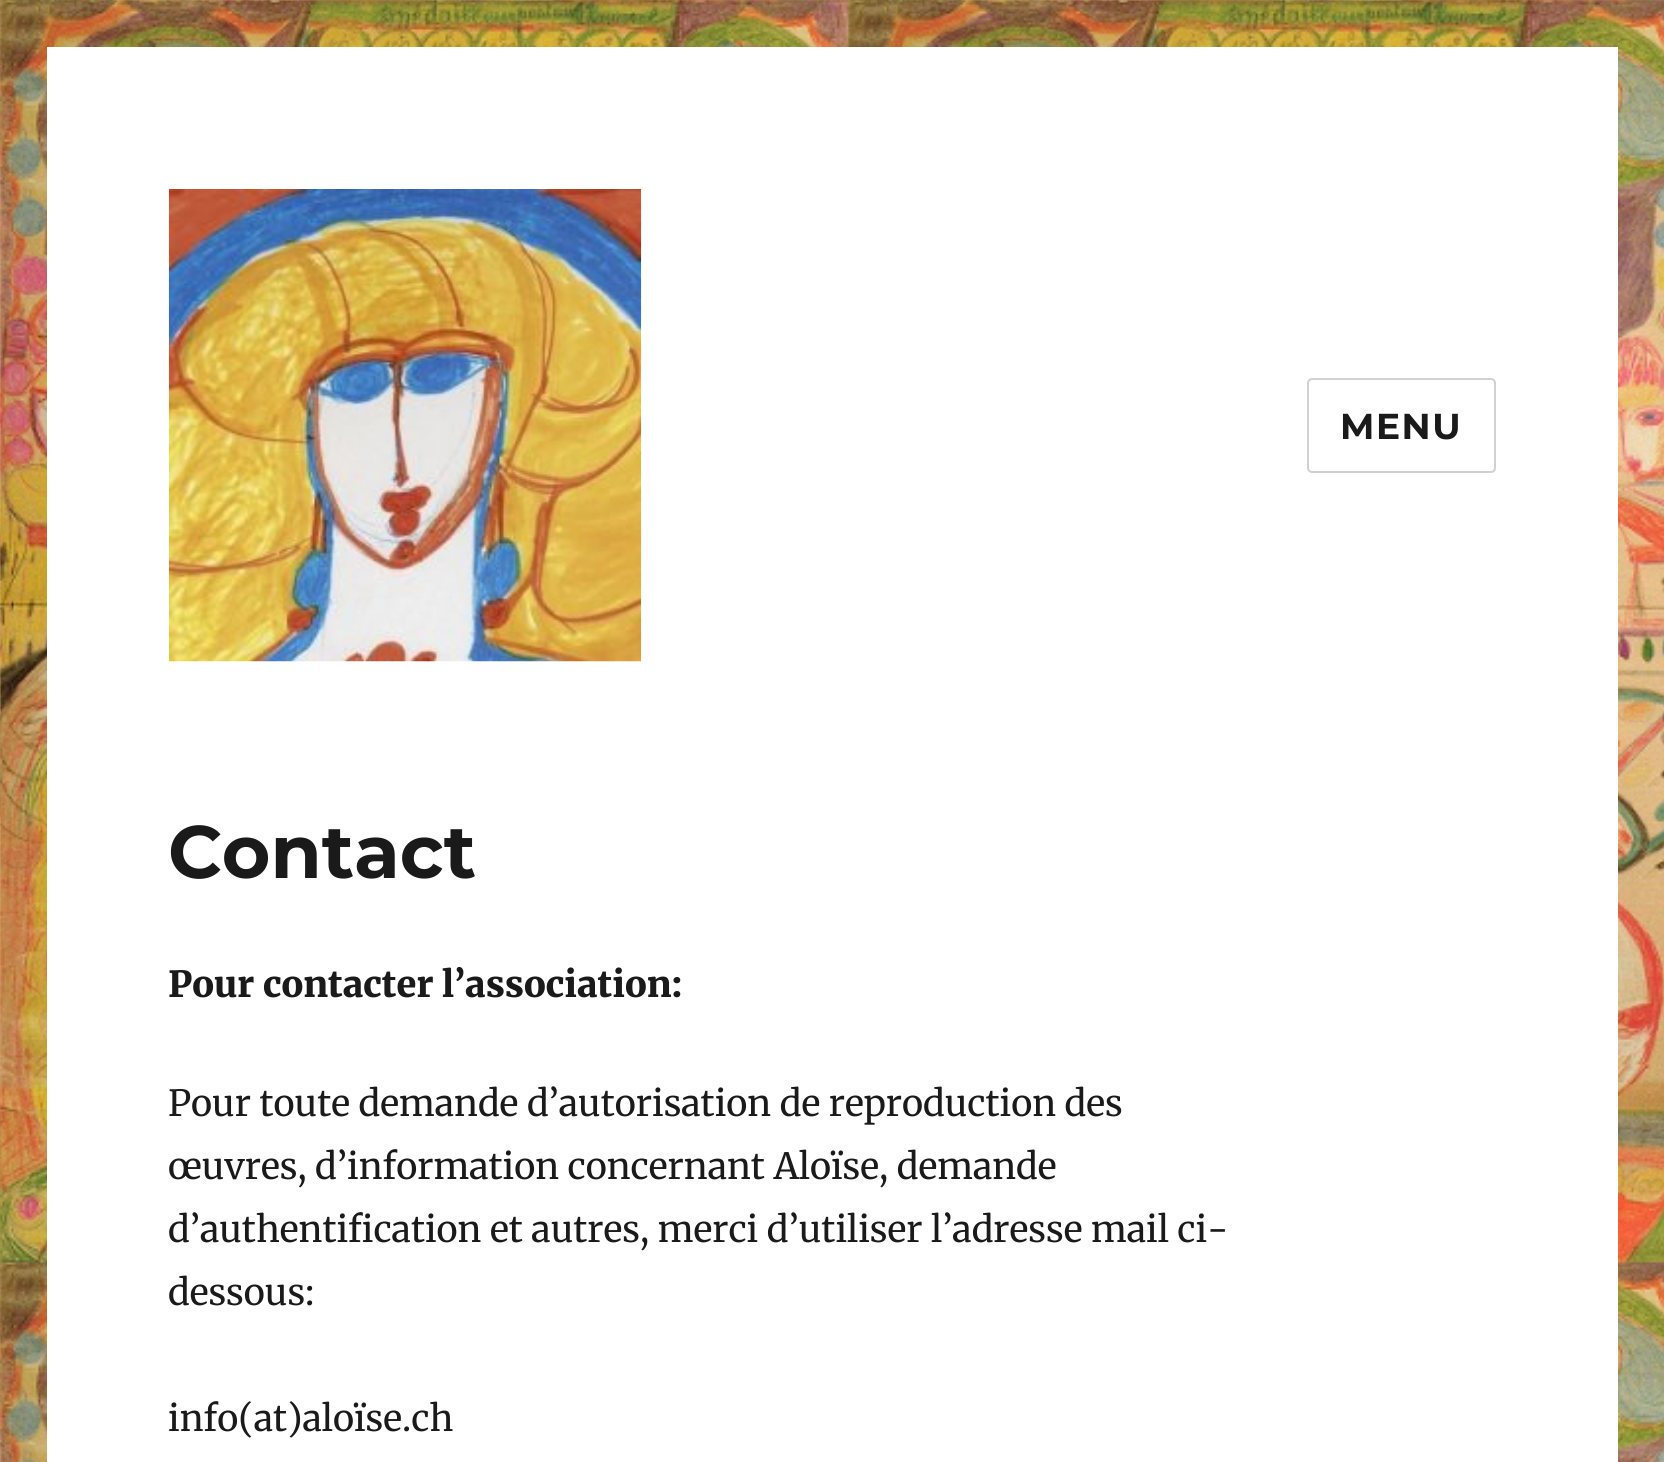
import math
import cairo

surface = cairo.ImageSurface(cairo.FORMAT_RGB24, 1664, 1462)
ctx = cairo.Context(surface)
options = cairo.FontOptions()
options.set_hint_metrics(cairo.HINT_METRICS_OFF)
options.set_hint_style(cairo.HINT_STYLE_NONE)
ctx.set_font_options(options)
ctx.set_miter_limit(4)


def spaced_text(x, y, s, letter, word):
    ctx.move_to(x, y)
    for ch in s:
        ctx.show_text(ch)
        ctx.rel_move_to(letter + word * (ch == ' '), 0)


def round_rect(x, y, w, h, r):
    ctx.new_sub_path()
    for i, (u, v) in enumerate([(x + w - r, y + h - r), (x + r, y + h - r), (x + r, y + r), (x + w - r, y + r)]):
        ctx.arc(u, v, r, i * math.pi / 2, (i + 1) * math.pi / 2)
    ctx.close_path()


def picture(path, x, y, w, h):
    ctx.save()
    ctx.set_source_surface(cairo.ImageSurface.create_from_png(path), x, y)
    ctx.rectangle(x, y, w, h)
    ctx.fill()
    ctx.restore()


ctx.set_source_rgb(1, 1, 1)
ctx.paint()
picture("img1.png", 0, 0, 1664, 1462)
ctx.set_source_rgb(1, 1, 1)
ctx.rectangle(47, 47, 1571, 1415)
ctx.fill()
picture("img2.png", 168, 189, 474, 473)
round_rect(1308, 379, 187, 93, 4)
ctx.set_source_rgb(0.82, 0.82, 0.82)
ctx.stroke()
ctx.select_font_face("Montserrat", cairo.FONT_SLANT_NORMAL, cairo.FONT_WEIGHT_BOLD)
ctx.set_font_size(36)
ctx.set_source_rgb(0.102, 0.102, 0.102)
spaced_text(1340, 439, "MENU", 1.5, 0)
ctx.set_font_size(74.25)
ctx.move_to(168, 878)
ctx.show_text("Contact")
ctx.select_font_face("Merriweather Black")
ctx.set_font_size(36)
ctx.move_to(168, 997)
ctx.show_text("Pour contacter l’association:")
ctx.select_font_face("Merriweather")
ctx.move_to(168, 1116)
ctx.show_text("Pour toute demande d’autorisation de reproduction des")
ctx.move_to(168, 1179)
ctx.show_text("œuvres, d’information concernant Aloïse, demande")
ctx.move_to(168, 1242)
ctx.show_text("d’authentification et autres, merci d’utiliser l’adresse mail ci-")
ctx.move_to(168, 1305)
ctx.show_text("dessous:")
ctx.move_to(168, 1431)
ctx.show_text("info(at)aloïse.ch")
surface.write_to_png("page.png")
